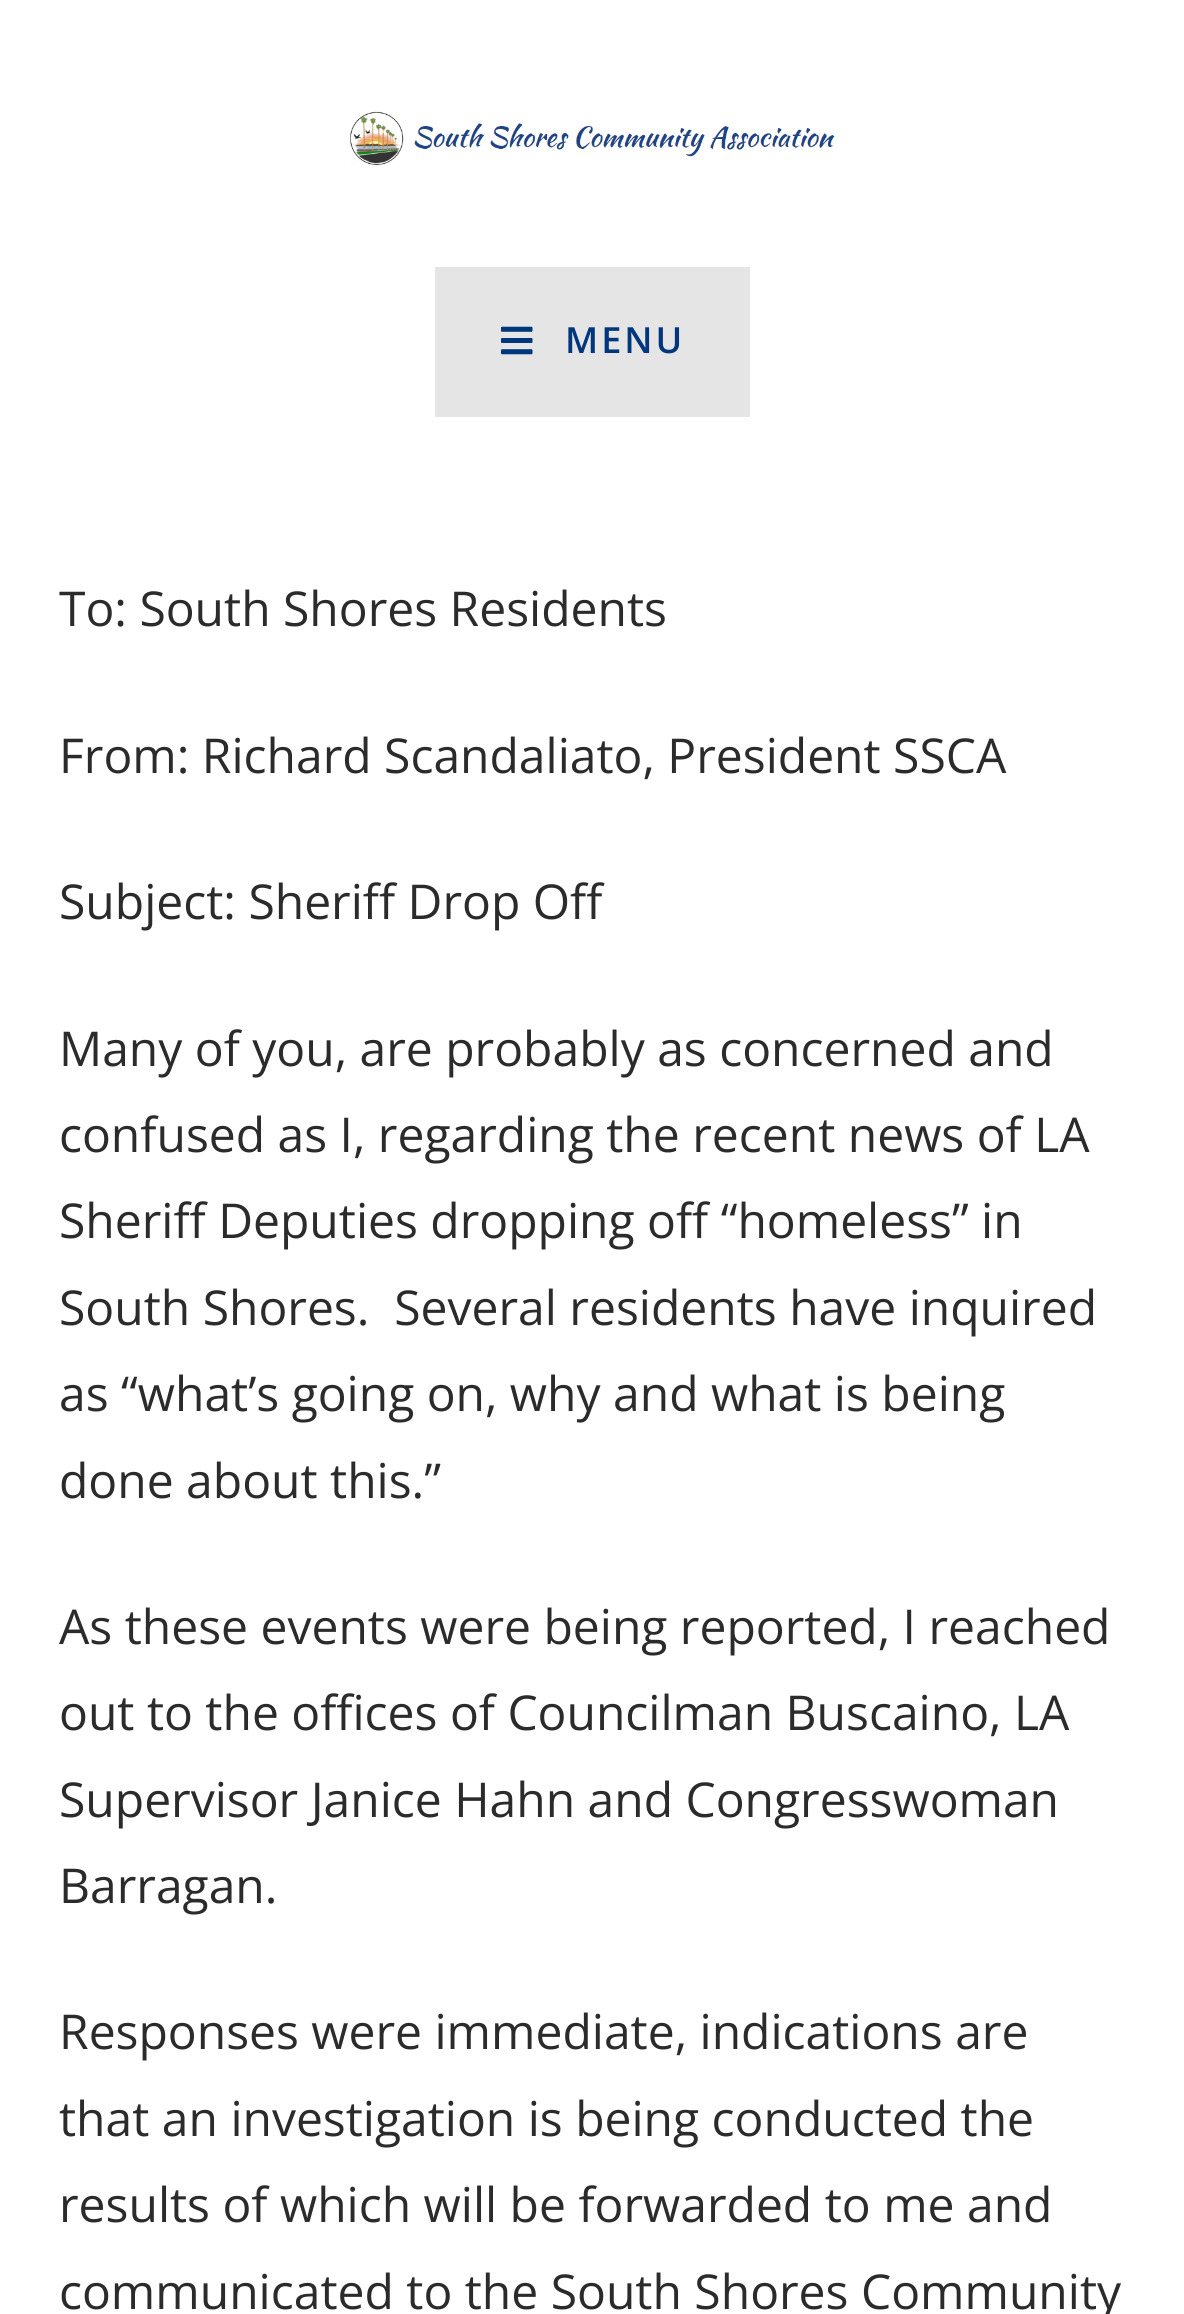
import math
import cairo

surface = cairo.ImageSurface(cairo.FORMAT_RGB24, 1184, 2314)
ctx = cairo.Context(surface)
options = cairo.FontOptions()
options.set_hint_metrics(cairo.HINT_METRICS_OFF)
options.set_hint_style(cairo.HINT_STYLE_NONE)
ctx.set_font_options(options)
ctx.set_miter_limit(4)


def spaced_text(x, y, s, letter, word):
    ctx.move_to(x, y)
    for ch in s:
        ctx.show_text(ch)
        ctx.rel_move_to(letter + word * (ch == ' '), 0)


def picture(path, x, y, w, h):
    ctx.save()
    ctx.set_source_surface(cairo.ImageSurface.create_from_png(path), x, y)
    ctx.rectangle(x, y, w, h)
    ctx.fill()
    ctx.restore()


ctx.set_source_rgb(1, 1, 1)
ctx.paint()
picture("img1.png", 350, 111, 485, 55)
ctx.set_source_rgb(0.898, 0.898, 0.898)
ctx.rectangle(435, 267, 315, 150)
ctx.fill()
picture("img2.png", 501, 326, 32, 29)
ctx.select_font_face("Open Sans SemiBold")
ctx.set_font_size(36)
ctx.set_source_rgb(0, 0.212, 0.486)
spaced_text(565, 353, "MENU", 3, 0)
ctx.select_font_face("Open Sans")
ctx.set_font_size(48)
ctx.set_source_rgb(0.169, 0.169, 0.169)
ctx.move_to(59, 626)
ctx.show_text("To: South Shores Residents")
ctx.move_to(59, 773)
ctx.show_text("From: Richard Scandaliato, President SSCA")
ctx.move_to(59, 919)
ctx.show_text("Subject: Sheriff Drop Off")
ctx.move_to(59, 1066)
ctx.show_text("Many of you, are probably as concerned and")
ctx.move_to(59, 1152)
ctx.show_text("confused as I, regarding the recent news of LA")
ctx.move_to(59, 1238)
ctx.show_text("Sheriff Deputies dropping off “homeless” in")
ctx.move_to(59, 1325)
ctx.show_text("South Shores.  Several residents have inquired")
ctx.move_to(59, 1411)
ctx.show_text("as “what’s going on, why and what is being")
ctx.move_to(59, 1498)
ctx.show_text("done about this.”")
ctx.move_to(59, 1644)
ctx.show_text("As these events were being reported, I reached")
ctx.move_to(59, 1730)
ctx.show_text("out to the offices of Councilman Buscaino, LA")
ctx.move_to(59, 1817)
ctx.show_text("Supervisor Janice Hahn and Congresswoman")
ctx.move_to(59, 1903)
ctx.show_text("Barragan.")
ctx.move_to(59, 2049)
ctx.show_text("Responses were immediate, indications are")
ctx.move_to(59, 2136)
ctx.show_text("that an investigation is being conducted the")
ctx.move_to(59, 2222)
ctx.show_text("results of which will be forwarded to me and")
ctx.move_to(59, 2309)
ctx.show_text("communicated to the South Shores Community")
surface.write_to_png("page.png")
